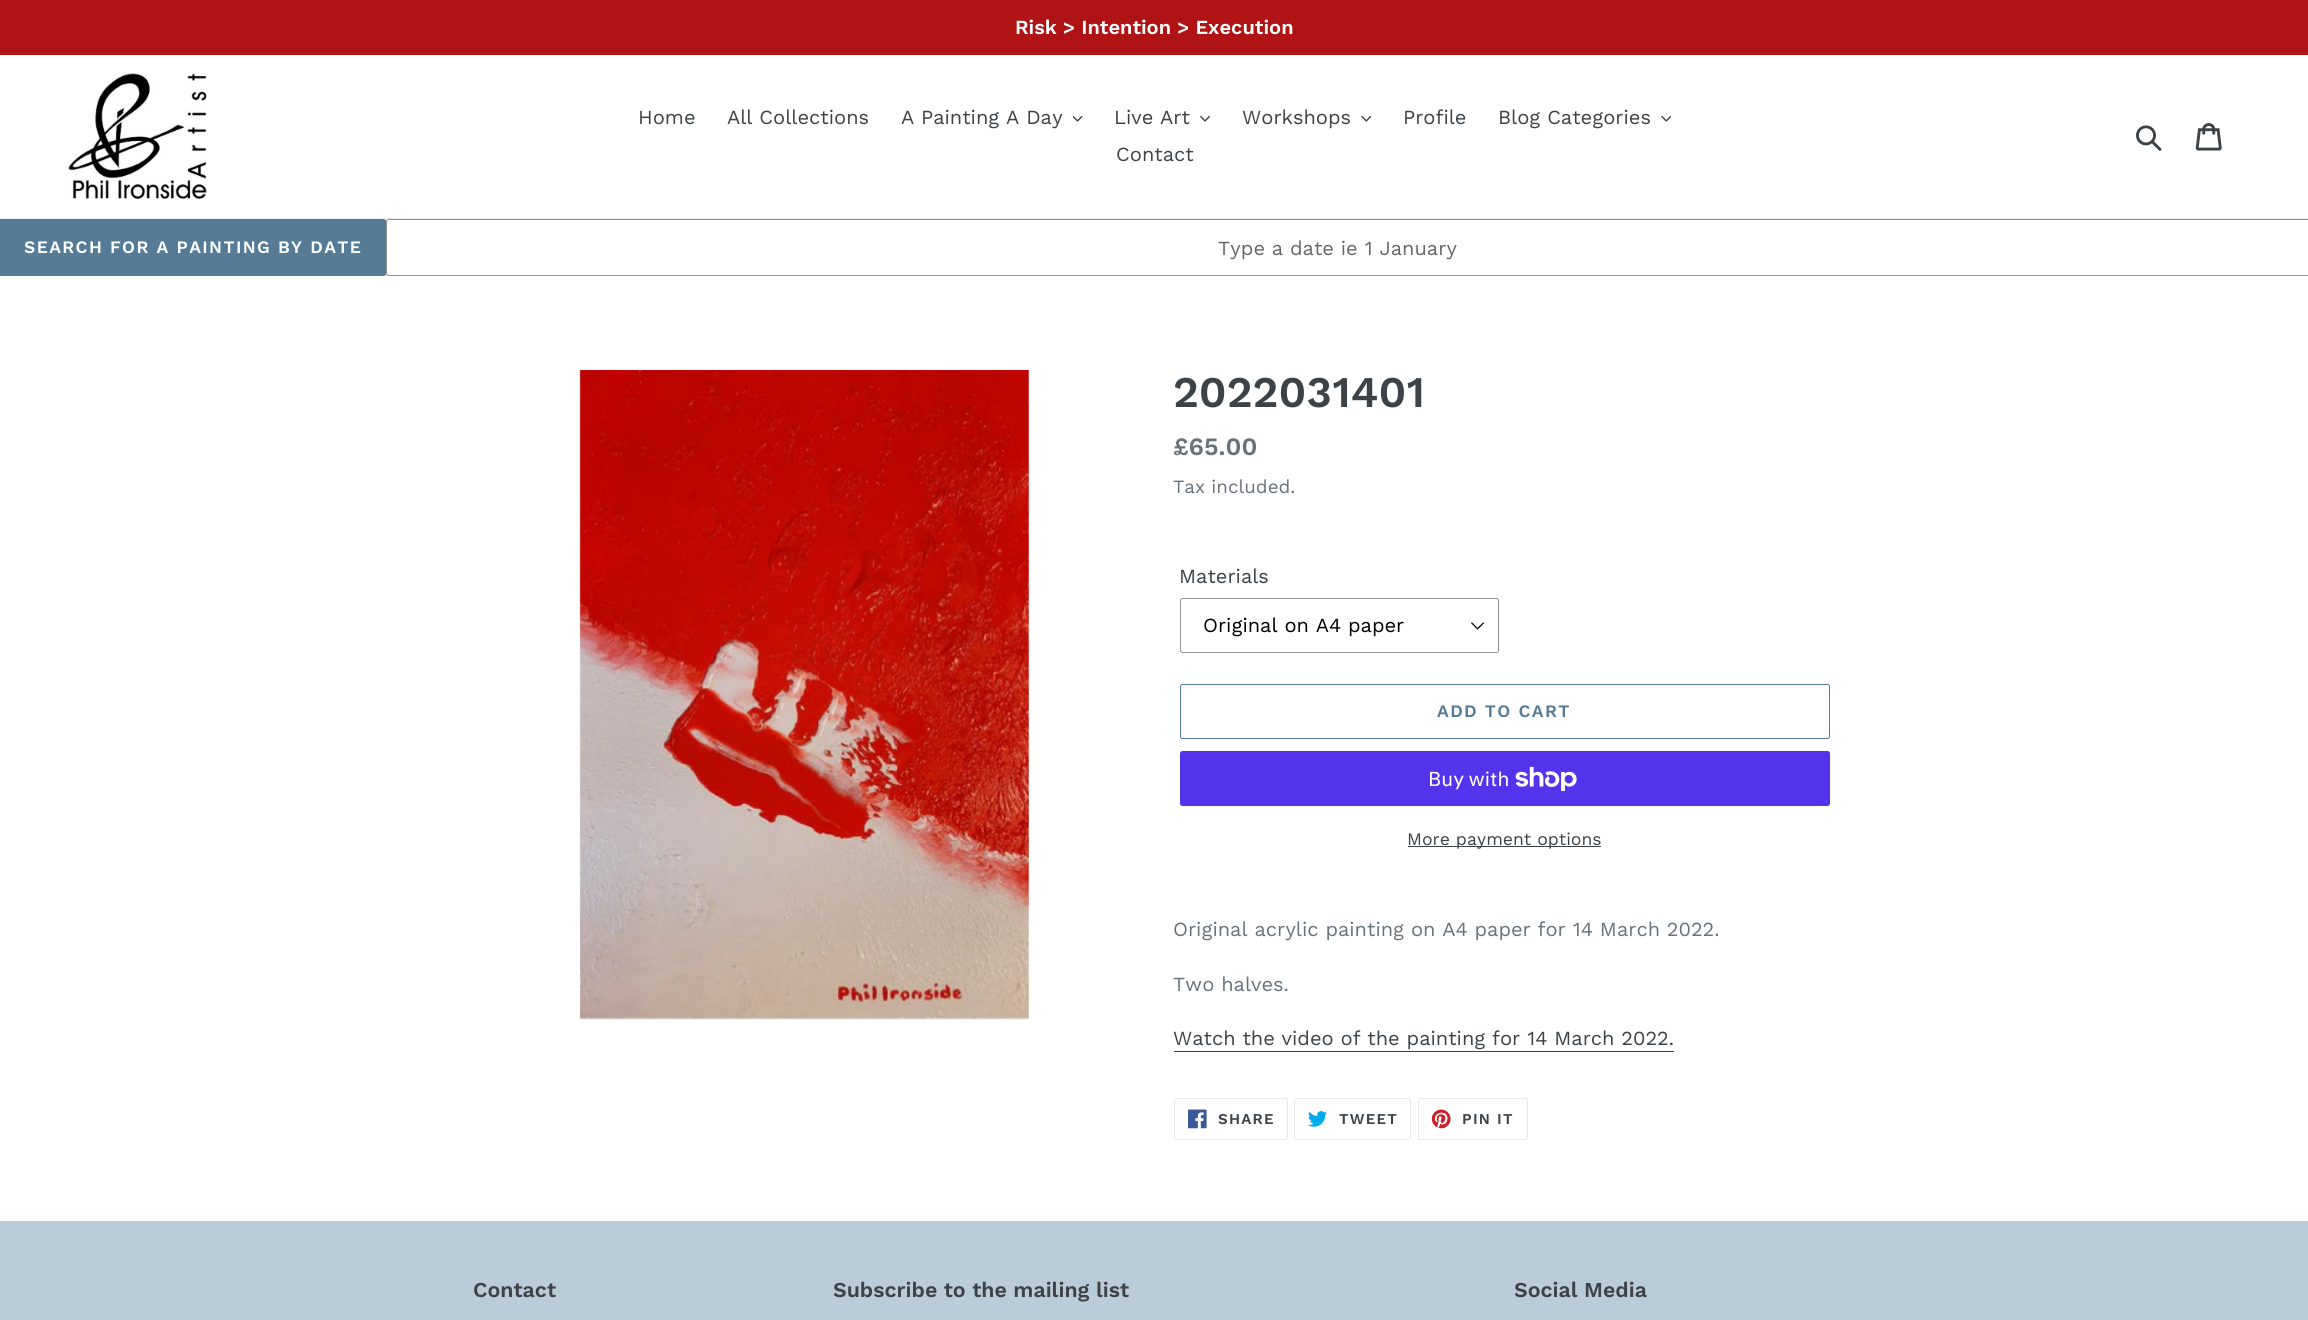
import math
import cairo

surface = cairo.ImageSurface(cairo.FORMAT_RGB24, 2308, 1320)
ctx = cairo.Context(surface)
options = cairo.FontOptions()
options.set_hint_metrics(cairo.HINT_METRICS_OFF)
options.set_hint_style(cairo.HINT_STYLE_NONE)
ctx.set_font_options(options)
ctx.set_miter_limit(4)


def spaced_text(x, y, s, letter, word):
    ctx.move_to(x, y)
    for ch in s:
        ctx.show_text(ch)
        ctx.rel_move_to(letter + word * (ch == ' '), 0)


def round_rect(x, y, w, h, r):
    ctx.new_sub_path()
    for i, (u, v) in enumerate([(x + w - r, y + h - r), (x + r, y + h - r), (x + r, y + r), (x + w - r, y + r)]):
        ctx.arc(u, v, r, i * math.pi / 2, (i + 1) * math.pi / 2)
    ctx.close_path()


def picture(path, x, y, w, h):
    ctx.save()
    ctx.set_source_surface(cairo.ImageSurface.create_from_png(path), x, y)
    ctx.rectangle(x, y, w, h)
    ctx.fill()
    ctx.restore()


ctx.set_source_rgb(1, 1, 1)
ctx.paint()
ctx.set_source_rgb(0.69, 0.078, 0.078)
ctx.rectangle(0, 0, 2308, 55)
ctx.fill()
ctx.select_font_face("Work Sans SemiBold")
ctx.set_font_size(20)
ctx.set_source_rgb(1, 1, 1)
ctx.move_to(1015, 34)
ctx.show_text("Risk > Intention > Execution")
ctx.set_source_rgb(0.91, 0.914, 0.922)
ctx.rectangle(0, 218, 2308, 1)
ctx.fill()
picture("img1.png", 68, 73, 139, 126)
ctx.select_font_face("Work Sans")
ctx.set_source_rgb(0.239, 0.259, 0.275)
ctx.move_to(638, 124)
ctx.show_text("Home")
ctx.move_to(727, 124)
ctx.show_text("All Collections")
ctx.move_to(901, 124)
ctx.show_text("A Painting A Day")
picture("img2.png", 1073, 115, 10, 7)
ctx.move_to(1114, 124)
ctx.show_text("Live Art")
picture("img3.png", 1200, 115, 10, 7)
ctx.move_to(1242, 124)
ctx.show_text("Workshops")
picture("img4.png", 1361, 115, 10, 7)
ctx.move_to(1403, 124)
ctx.show_text("Profile")
ctx.move_to(1498, 124)
ctx.show_text("Blog Categories")
picture("img4.png", 1661, 115, 10, 7)
ctx.move_to(1116, 161)
ctx.show_text("Contact")
picture("img5.png", 2136, 125, 26, 26)
picture("img6.png", 2195, 123, 27, 28)
ctx.set_source_rgb(0.333, 0.482, 0.592)
ctx.new_path()
ctx.move_to(0, 219)
ctx.line_to(383.5, 219)
ctx.curve_to(385, 219, 386, 220, 386, 221.5)
ctx.line_to(386, 273.5)
ctx.curve_to(386, 275, 385, 276, 383.5, 276)
ctx.line_to(0, 276)
ctx.close_path()
ctx.fill()
ctx.select_font_face("Work Sans SemiBold")
ctx.set_font_size(17.5)
ctx.set_source_rgb(1, 1, 1)
spaced_text(24, 253, "SEARCH FOR A PAINTING BY DATE", 1.4, 0)
ctx.new_path()
ctx.move_to(388.5, 219.5)
ctx.line_to(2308.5, 219.5)
ctx.line_to(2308.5, 275.5)
ctx.line_to(388.5, 275.5)
ctx.curve_to(387.5, 275.5, 386.5, 274.5, 386.5, 273.5)
ctx.line_to(386.5, 221.5)
ctx.curve_to(386.5, 220.5, 387.5, 219.5, 388.5, 219.5)
ctx.close_path()
ctx.set_source_rgb(0.58, 0.58, 0.58)
ctx.set_line_width(1)
ctx.stroke()
ctx.select_font_face("Work Sans")
ctx.set_font_size(20)
ctx.set_source_rgb(0.4, 0.4, 0.4)
ctx.move_to(1218, 255)
ctx.show_text("Type a date ie 1 January")
picture("img7.png", 579, 370, 450, 650)
ctx.select_font_face("Work Sans SemiBold")
ctx.set_font_size(43.75)
ctx.set_source_rgb(0.239, 0.259, 0.275)
ctx.move_to(1173, 407)
ctx.show_text("2022031401")
ctx.set_font_size(25)
ctx.set_source_rgb(0.412, 0.447, 0.482)
ctx.move_to(1173, 455)
ctx.show_text("£65.00")
ctx.select_font_face("Work Sans")
ctx.set_font_size(18.75)
ctx.move_to(1173, 493)
ctx.show_text("Tax included.")
ctx.set_font_size(20)
ctx.set_source_rgb(0.239, 0.259, 0.275)
ctx.move_to(1179, 583)
ctx.show_text("Materials")
picture("img8.png", 1471, 622, 13, 8)
round_rect(1180.5, 598.5, 318, 54, 2)
ctx.set_source_rgb(0.58, 0.58, 0.58)
ctx.stroke()
ctx.set_source_rgb(0, 0, 0)
ctx.move_to(1203, 632)
ctx.show_text("Original on A4 paper")
round_rect(1180.5, 684.5, 649, 54, 2)
ctx.set_source_rgb(0.333, 0.482, 0.592)
ctx.stroke()
ctx.select_font_face("Work Sans SemiBold")
ctx.set_font_size(17.5)
spaced_text(1437, 717, "ADD TO CART", 1.4, 0)
ctx.set_source_rgb(0.329, 0.2, 0.922)
round_rect(1180, 751, 650, 55, 2.5)
ctx.fill()
ctx.select_font_face("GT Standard")
ctx.set_font_size(20)
ctx.set_source_rgb(1, 1, 1)
ctx.move_to(1428, 786)
ctx.show_text("Buy with")
picture("img9.png", 1515, 766, 62, 25)
ctx.set_source_rgb(0.239, 0.259, 0.275)
ctx.rectangle(1408, 846, 193, 1)
ctx.fill()
ctx.select_font_face("Work Sans")
ctx.set_font_size(17.5)
ctx.move_to(1407, 845)
ctx.show_text("More payment options")
ctx.set_font_size(20)
ctx.set_source_rgb(0.412, 0.447, 0.482)
ctx.move_to(1173, 936)
ctx.show_text("Original acrylic painting on A4 paper for 14 March 2022.")
ctx.move_to(1173, 991)
ctx.show_text("Two halves.")
ctx.set_source_rgb(0.239, 0.259, 0.275)
ctx.move_to(1173, 1045)
ctx.show_text("Watch the video of the painting for 14 March 2022.")
ctx.rectangle(1174, 1051, 500, 1)
ctx.fill()
round_rect(1174.5, 1098.5, 113, 41, 2)
ctx.set_source_rgb(0.91, 0.914, 0.922)
ctx.stroke()
picture("img10.png", 1188, 1109, 19, 20)
ctx.select_font_face("Work Sans SemiBold")
ctx.set_font_size(15)
ctx.set_source_rgb(0.239, 0.259, 0.275)
spaced_text(1218, 1124, "SHARE", 1.25, 0)
round_rect(1294.5, 1098.5, 116, 41, 2)
ctx.set_source_rgb(0.91, 0.914, 0.922)
ctx.stroke()
picture("img11.png", 1308, 1111, 19, 16)
ctx.set_source_rgb(0.239, 0.259, 0.275)
spaced_text(1339, 1124, "TWEET", 1.25, 0)
round_rect(1418.5, 1098.5, 109, 41, 2)
ctx.set_source_rgb(0.91, 0.914, 0.922)
ctx.stroke()
picture("img12.png", 1431, 1109, 20, 20)
ctx.set_source_rgb(0.239, 0.259, 0.275)
spaced_text(1462, 1124, "PIN IT", 1.25, 0)
ctx.set_source_rgb(0.733, 0.8, 0.851)
ctx.rectangle(0, 1221, 2308, 99)
ctx.fill()
ctx.set_font_size(21.25)
ctx.set_source_rgb(0.239, 0.259, 0.275)
ctx.move_to(473, 1297)
ctx.show_text("Contact")
ctx.move_to(833, 1297)
ctx.show_text("Subscribe to the mailing list")
ctx.move_to(1514, 1297)
ctx.show_text("Social Media")
surface.write_to_png("page.png")
